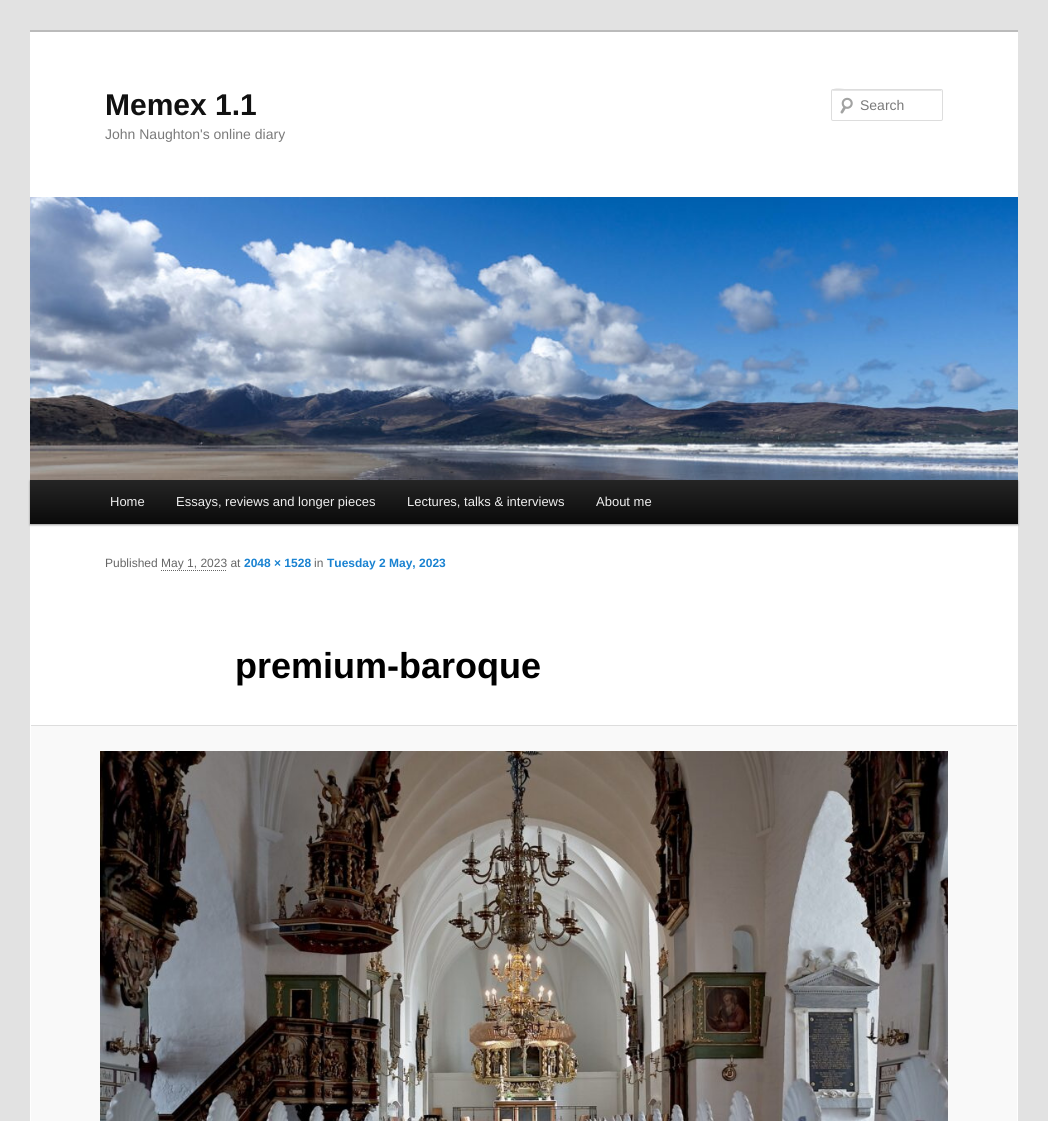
import math
import cairo

surface = cairo.ImageSurface(cairo.FORMAT_RGB24, 1048, 1121)
ctx = cairo.Context(surface)
options = cairo.FontOptions()
options.set_hint_metrics(cairo.HINT_METRICS_OFF)
options.set_hint_style(cairo.HINT_STYLE_NONE)
ctx.set_font_options(options)
ctx.set_miter_limit(4)


def round_rect(x, y, w, h, r):
    ctx.new_sub_path()
    for i, (u, v) in enumerate([(x + w - r, y + h - r), (x + r, y + h - r), (x + r, y + r), (x + w - r, y + r)]):
        ctx.arc(u, v, r, i * math.pi / 2, (i + 1) * math.pi / 2)
    ctx.close_path()


def shadow(x, y, w, h, r, blur, alpha):
    ctx.push_group_with_content(cairo.CONTENT_ALPHA)
    ctx.set_operator(cairo.OPERATOR_SOURCE)
    for i in range(15, -16, -2):
        e = blur * i / 6
        if min(w, h) + 2 * e > 0:
            ctx.set_source_rgba(0, 0, 0, alpha * math.erfc((i - 1) / 8.5) / 2)
            round_rect(x - e, y - e, w + 2 * e, h + 2 * e, max(0, min(r + e + blur * .6, min(w, h) / 2 + e)))
            ctx.fill()
    ctx.mask(ctx.pop_group())


def picture(path, x, y, w, h):
    ctx.save()
    ctx.set_source_surface(cairo.ImageSurface.create_from_png(path), x, y)
    ctx.rectangle(x, y, w, h)
    ctx.fill()
    ctx.restore()


ctx.set_source_rgb(0.886, 0.886, 0.886)
ctx.paint()
ctx.set_source_rgb(1, 1, 1)
ctx.rectangle(30, 32, 988, 1089)
ctx.fill()
ctx.set_source_rgb(0.733, 0.733, 0.733)
ctx.rectangle(30, 30, 988, 2)
ctx.fill()
ctx.select_font_face("Liberation Sans", cairo.FONT_SLANT_NORMAL, cairo.FONT_WEIGHT_BOLD)
ctx.set_font_size(30)
ctx.set_source_rgb(0.067, 0.067, 0.067)
ctx.move_to(105, 115)
ctx.show_text("Memex 1.1")
ctx.select_font_face("Liberation Sans")
ctx.set_font_size(14)
ctx.set_source_rgb(0.478, 0.478, 0.478)
ctx.move_to(105, 139)
ctx.show_text("John Naughton's online diary")
picture("img1.png", 840, 97, 13, 17)
ctx.set_source_rgb(0.902, 0.902, 0.902)
ctx.new_path()
ctx.move_to(833, 91)
ctx.line_to(942, 91)
ctx.line_to(942, 92)
ctx.line_to(941, 90)
ctx.line_to(851, 90)
ctx.curve_to(847, 90, 832, 85, 832, 92)
ctx.curve_to(832, 91, 832, 91, 833, 91)
ctx.close_path()
ctx.fill()
round_rect(831.5, 89.5, 111, 31, 1.5)
ctx.set_source_rgb(0.867, 0.867, 0.867)
ctx.set_line_width(1)
ctx.stroke()
ctx.set_source_rgb(0.478, 0.478, 0.478)
ctx.move_to(860, 110)
ctx.show_text("Search")
ctx.set_source_rgb(0, 0, 0)
shadow(30, 481, 988, 44, 0, 1, 0.4)
picture("img2.png", 30, 197, 988, 283)
gradient = cairo.LinearGradient(524, 480, 524, 524)
gradient.add_color_stop_rgba(0, 0.145, 0.145, 0.145, 1)
gradient.add_color_stop_rgba(1, 0.039, 0.039, 0.039, 1)
ctx.set_source(gradient)
ctx.rectangle(30, 480, 988, 44)
ctx.fill()
ctx.set_font_size(13)
ctx.set_source_rgb(0.933, 0.933, 0.933)
ctx.move_to(110, 506)
ctx.show_text("Home")
ctx.move_to(176, 506)
ctx.show_text("Essays, reviews and longer pieces")
ctx.move_to(407, 506)
ctx.show_text("Lectures, talks & interviews")
ctx.move_to(596, 506)
ctx.show_text("About me")
ctx.set_font_size(12)
ctx.set_source_rgb(0.4, 0.4, 0.4)
ctx.move_to(105, 567)
ctx.show_text("Published May 1, 2023 at")
ctx.select_font_face("Liberation Sans", cairo.FONT_SLANT_NORMAL, cairo.FONT_WEIGHT_BOLD)
ctx.set_source_rgb(0.098, 0.51, 0.82)
ctx.move_to(244, 567)
ctx.show_text("2048 × 1528")
ctx.select_font_face("Liberation Sans")
ctx.set_source_rgb(0.4, 0.4, 0.4)
ctx.move_to(314, 567)
ctx.show_text("in")
ctx.select_font_face("Liberation Sans", cairo.FONT_SLANT_NORMAL, cairo.FONT_WEIGHT_BOLD)
ctx.set_source_rgb(0.098, 0.51, 0.82)
ctx.move_to(327, 567)
ctx.show_text("Tuesday 2 May, 2023")
ctx.new_path()
ctx.move_to(161, 570.5)
ctx.line_to(227, 570.5)
ctx.set_source_rgb(0.4, 0.4, 0.4)
ctx.set_dash([1, 1])
ctx.stroke()
ctx.set_font_size(36)
ctx.set_source_rgb(0, 0, 0)
ctx.move_to(235, 678)
ctx.show_text("premium-baroque")
ctx.set_source_rgb(0.976, 0.976, 0.976)
ctx.rectangle(31, 726, 986, 395)
ctx.fill()
ctx.set_source_rgb(0.867, 0.867, 0.867)
ctx.rectangle(31, 725, 986, 1)
ctx.fill()
picture("img3.png", 100, 751, 848, 370)
surface.write_to_png("page.png")
